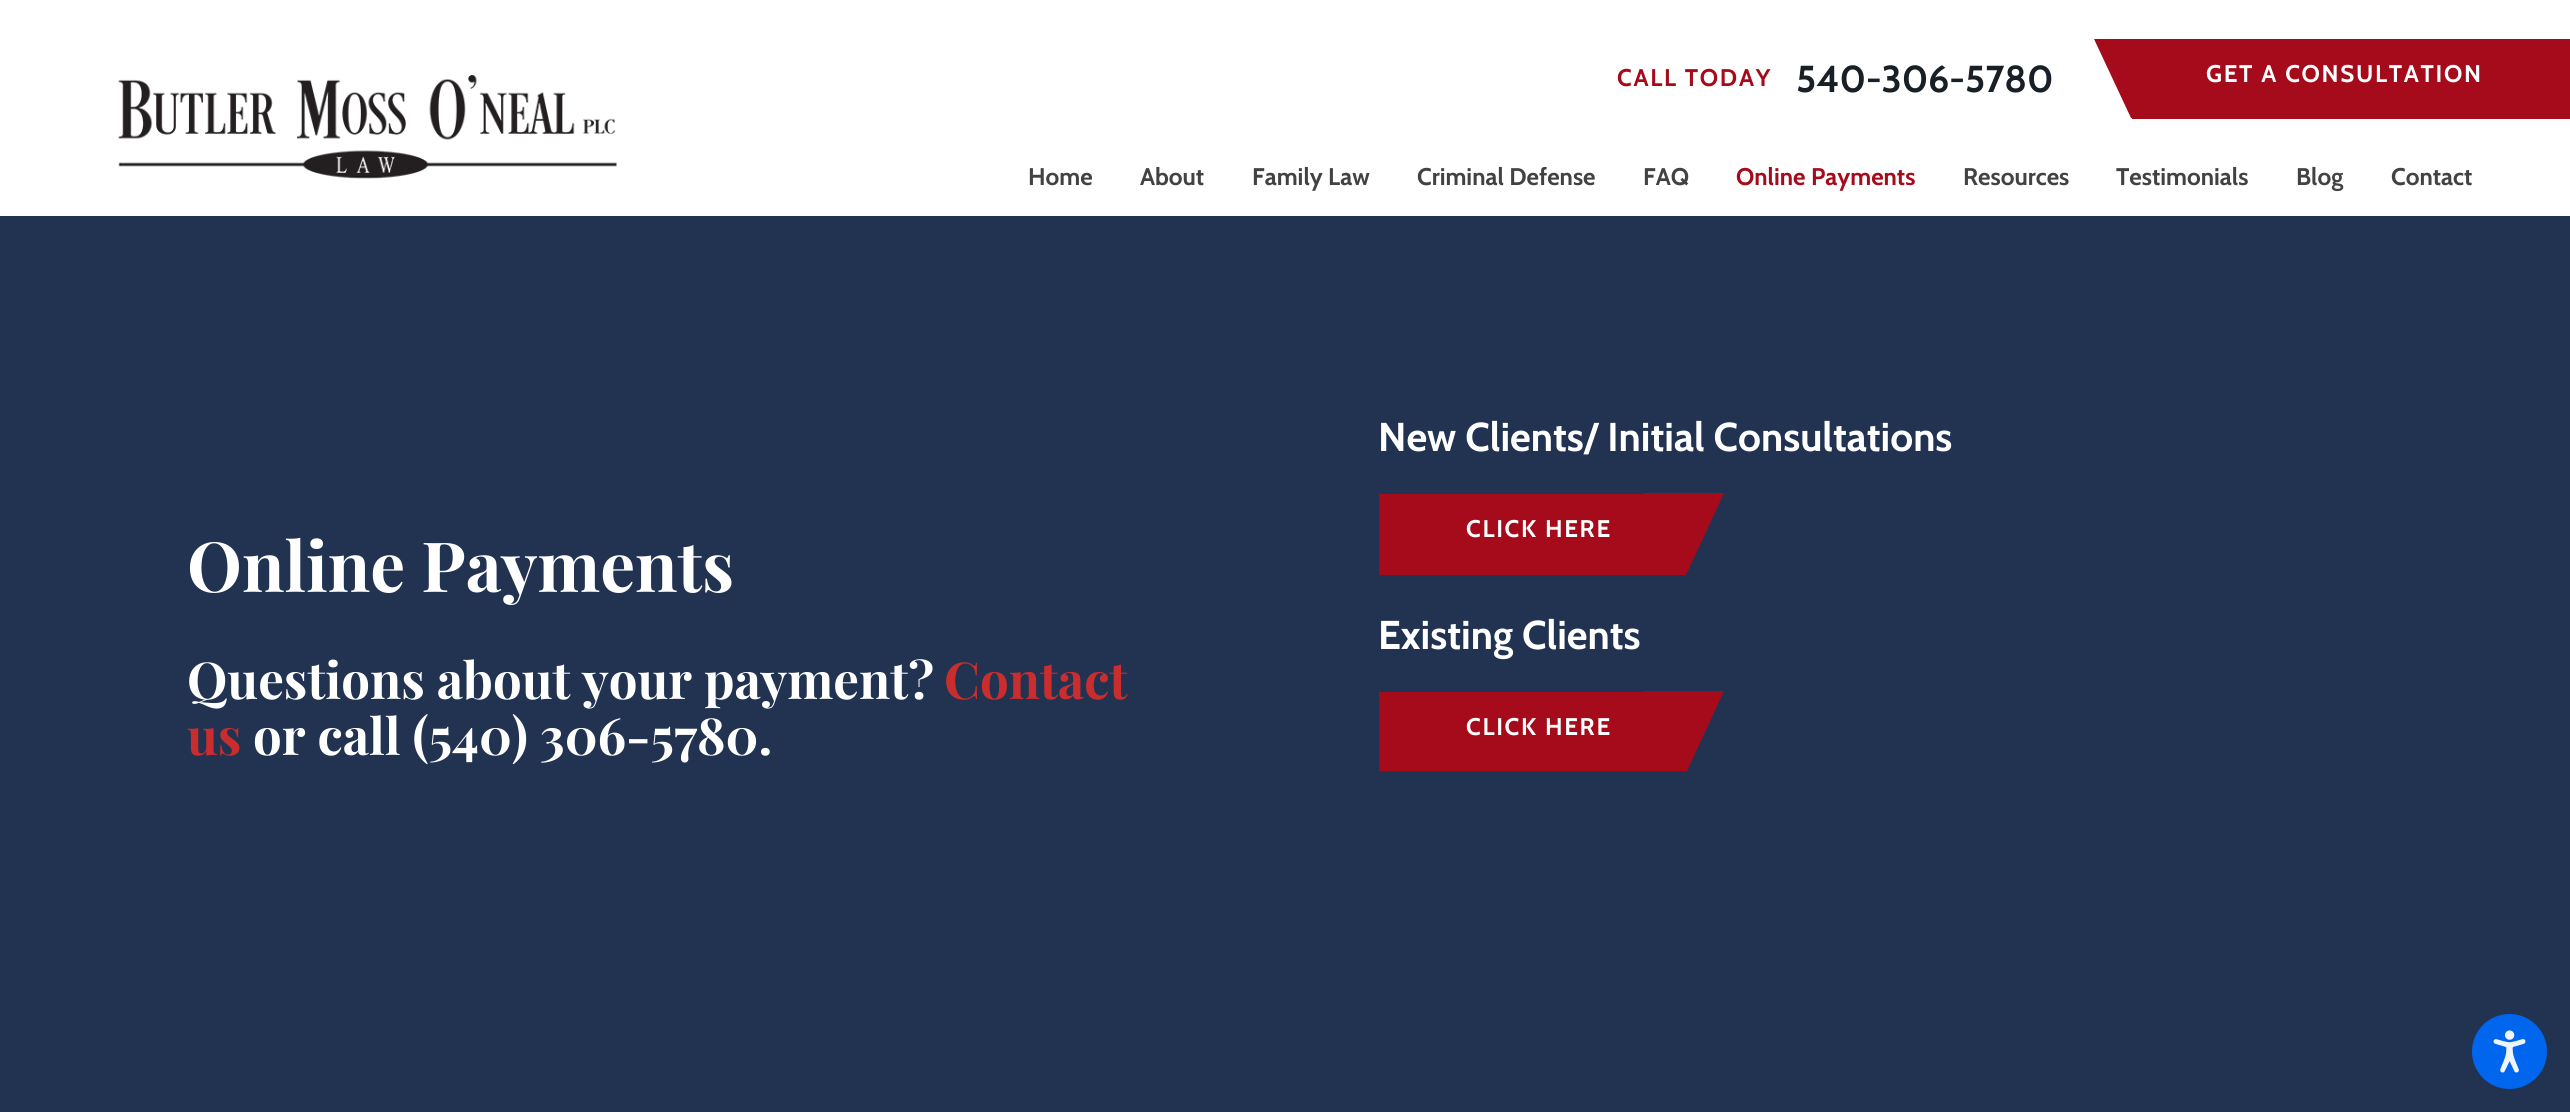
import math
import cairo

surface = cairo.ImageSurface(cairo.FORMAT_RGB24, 2570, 1112)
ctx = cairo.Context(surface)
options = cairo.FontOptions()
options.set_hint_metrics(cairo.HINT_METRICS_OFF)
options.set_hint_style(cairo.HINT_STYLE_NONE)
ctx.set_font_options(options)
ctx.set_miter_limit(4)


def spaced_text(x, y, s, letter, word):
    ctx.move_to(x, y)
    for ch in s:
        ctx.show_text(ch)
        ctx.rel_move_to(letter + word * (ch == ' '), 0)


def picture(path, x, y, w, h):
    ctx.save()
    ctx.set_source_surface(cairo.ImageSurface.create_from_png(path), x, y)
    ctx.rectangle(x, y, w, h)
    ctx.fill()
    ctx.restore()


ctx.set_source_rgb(1, 1, 1)
ctx.paint()
picture("img1.png", 118, 75, 499, 104)
ctx.select_font_face("Cabin", cairo.FONT_SLANT_NORMAL, cairo.FONT_WEIGHT_BOLD)
ctx.set_font_size(24.1)
ctx.set_source_rgb(0.647, 0.043, 0.102)
spaced_text(1617, 86, "CALL TODAY", 1.7, 0)
ctx.set_font_size(37.5)
ctx.set_source_rgb(0.098, 0.122, 0.149)
ctx.move_to(1796, 92)
ctx.show_text("540-306-5780")
ctx.set_source_rgb(0.647, 0.043, 0.102)
ctx.rectangle(2132, 39, 438, 80)
ctx.fill()
ctx.new_path()
ctx.move_to(2094, 39)
ctx.line_to(2174, 39)
ctx.line_to(2211, 118)
ctx.line_to(2131, 118)
ctx.close_path()
ctx.fill()
ctx.set_font_size(24.1)
ctx.set_source_rgb(1, 1, 1)
spaced_text(2206, 82, "GET A CONSULTATION", 1.7, 0)
ctx.set_source_rgb(0.255, 0.259, 0.267)
ctx.move_to(1028, 185)
ctx.show_text("Home")
ctx.move_to(1140, 185)
ctx.show_text("About")
ctx.move_to(1252, 185)
ctx.show_text("Family Law")
ctx.move_to(1417, 185)
ctx.show_text("Criminal Defense")
ctx.move_to(1643, 185)
ctx.show_text("FAQ")
ctx.set_source_rgb(0.647, 0.043, 0.102)
ctx.move_to(1736, 185)
ctx.show_text("Online Payments")
ctx.set_source_rgb(0.255, 0.259, 0.267)
ctx.move_to(1963, 185)
ctx.show_text("Resources")
ctx.move_to(2116, 185)
ctx.show_text("Testimonials")
ctx.move_to(2296, 185)
ctx.show_text("Blog")
ctx.move_to(2391, 185)
ctx.show_text("Contact")
ctx.set_source_rgb(0.129, 0.2, 0.318)
ctx.rectangle(0, 216, 2570, 896)
ctx.fill()
picture("img2.png", 2472, 1014, 75, 75)
ctx.select_font_face("Playfair Display", cairo.FONT_SLANT_NORMAL, cairo.FONT_WEIGHT_BOLD)
ctx.set_font_size(69.25)
ctx.set_source_rgb(1, 1, 1)
ctx.move_to(187, 592)
ctx.show_text("Online Payments")
ctx.set_font_size(50.9)
ctx.move_to(187, 699)
ctx.show_text("Questions about your payment?")
ctx.set_source_rgb(0.788, 0.176, 0.176)
ctx.move_to(944, 699)
ctx.show_text("Contact")
ctx.move_to(187, 755)
ctx.show_text("us")
ctx.set_source_rgb(1, 1, 1)
ctx.move_to(253, 755)
ctx.show_text("or call (540) 306-5780.")
ctx.select_font_face("Cabin", cairo.FONT_SLANT_NORMAL, cairo.FONT_WEIGHT_BOLD)
ctx.set_font_size(40.2)
ctx.move_to(1378, 451)
ctx.show_text("New Clients/ Initial Consultations")
ctx.set_source_rgb(0.647, 0.043, 0.102)
ctx.rectangle(1379, 494, 307, 81)
ctx.fill()
ctx.new_path()
ctx.move_to(1644, 493)
ctx.line_to(1724, 493)
ctx.line_to(1687, 573)
ctx.line_to(1607, 573)
ctx.close_path()
ctx.fill()
ctx.set_font_size(24.1)
ctx.set_source_rgb(1, 1, 1)
spaced_text(1466, 537, "CLICK HERE", 1.7, 0)
ctx.set_font_size(40.2)
ctx.move_to(1378, 649)
ctx.show_text("Existing Clients")
ctx.set_source_rgb(0.647, 0.043, 0.102)
ctx.rectangle(1379, 692, 265, 79)
ctx.fill()
ctx.new_path()
ctx.move_to(1644, 691)
ctx.line_to(1724, 691)
ctx.line_to(1687, 771)
ctx.line_to(1607, 771)
ctx.close_path()
ctx.fill()
ctx.set_font_size(24.1)
ctx.set_source_rgb(1, 1, 1)
spaced_text(1466, 735, "CLICK HERE", 1.7, 0)
surface.write_to_png("page.png")
